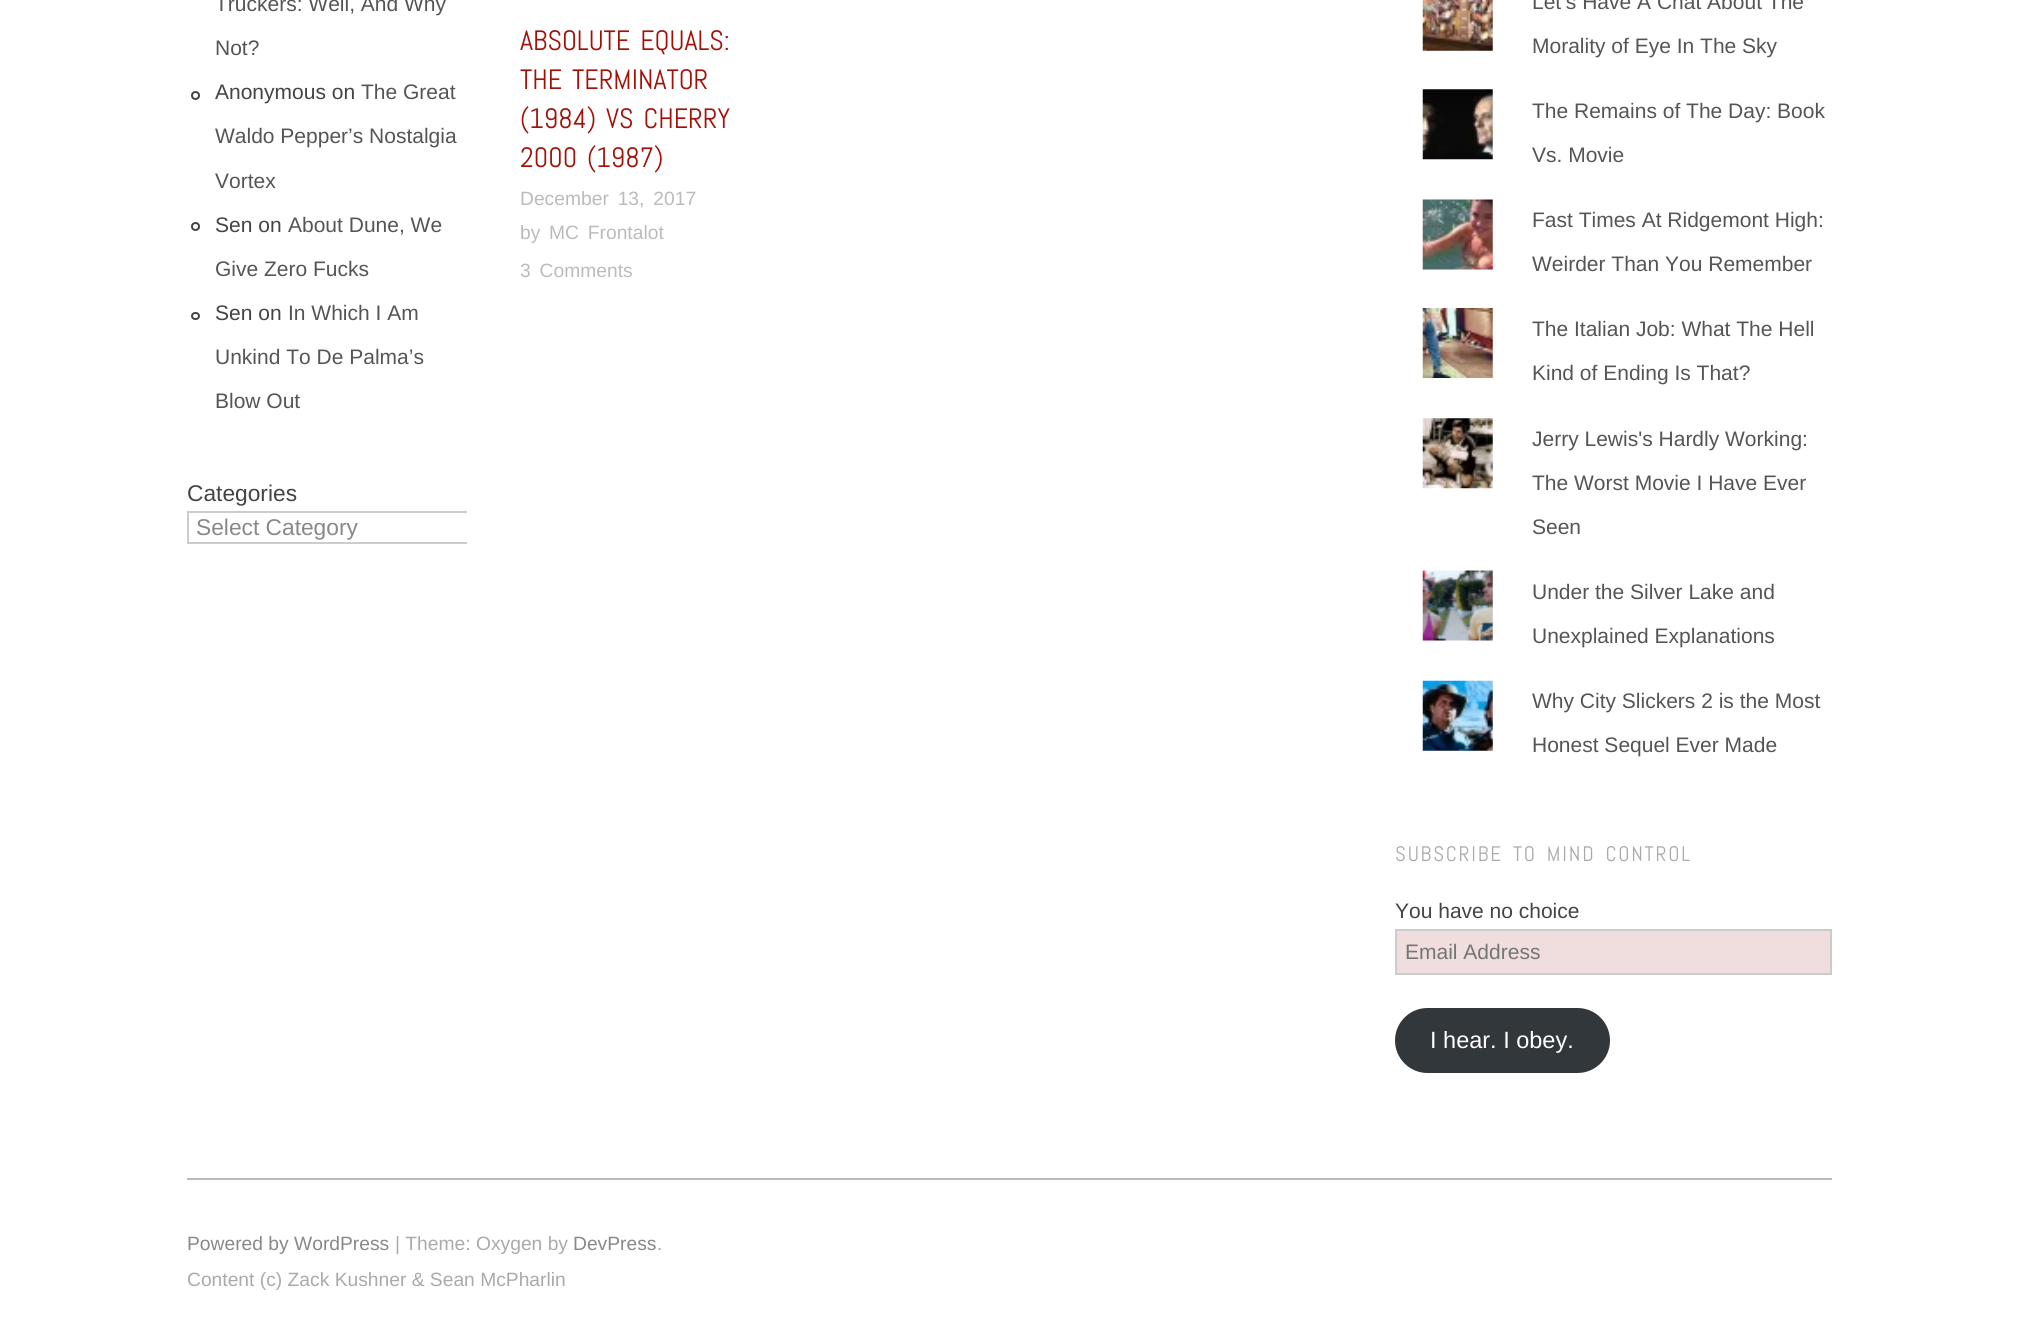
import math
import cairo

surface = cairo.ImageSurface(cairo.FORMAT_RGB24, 2018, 1339)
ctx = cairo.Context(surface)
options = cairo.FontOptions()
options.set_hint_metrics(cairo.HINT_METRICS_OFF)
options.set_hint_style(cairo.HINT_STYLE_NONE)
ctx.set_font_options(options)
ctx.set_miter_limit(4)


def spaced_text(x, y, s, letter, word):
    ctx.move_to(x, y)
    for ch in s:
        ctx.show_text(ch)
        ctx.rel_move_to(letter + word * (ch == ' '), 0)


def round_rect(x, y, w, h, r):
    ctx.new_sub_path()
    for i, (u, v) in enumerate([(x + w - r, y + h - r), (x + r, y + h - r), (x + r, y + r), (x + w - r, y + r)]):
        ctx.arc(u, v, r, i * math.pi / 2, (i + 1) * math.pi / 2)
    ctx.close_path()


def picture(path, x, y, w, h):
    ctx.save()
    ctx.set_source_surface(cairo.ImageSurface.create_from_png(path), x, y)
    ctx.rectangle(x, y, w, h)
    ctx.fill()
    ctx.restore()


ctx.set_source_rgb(1, 1, 1)
ctx.paint()
ctx.select_font_face("Liberation Sans")
ctx.set_font_size(21)
ctx.set_source_rgb(0.333, 0.333, 0.333)
ctx.move_to(215, 11)
ctx.show_text("Truckers: Well, And Why")
ctx.move_to(215, 55)
ctx.show_text("Not?")
ctx.new_path()
ctx.arc(195.5, 95.5, 3.5, 0, 2 * math.pi)
ctx.set_source_rgb(0.267, 0.267, 0.267)
ctx.stroke()
ctx.move_to(215, 99)
ctx.show_text("Anonymous on")
ctx.set_source_rgb(0.333, 0.333, 0.333)
ctx.move_to(361, 99)
ctx.show_text("The Great")
ctx.move_to(215, 143)
ctx.show_text("Waldo Pepper’s Nostalgia")
ctx.move_to(215, 188)
ctx.show_text("Vortex")
ctx.new_path()
ctx.arc(195.5, 226.5, 3.5, 0, 2 * math.pi)
ctx.set_source_rgb(0.267, 0.267, 0.267)
ctx.stroke()
ctx.move_to(215, 232)
ctx.show_text("Sen on")
ctx.set_source_rgb(0.333, 0.333, 0.333)
ctx.move_to(288, 232)
ctx.show_text("About Dune, We")
ctx.move_to(215, 276)
ctx.show_text("Give Zero Fucks")
round_rect(192, 313, 7, 6, 3)
ctx.set_source_rgb(0.267, 0.267, 0.267)
ctx.stroke()
ctx.move_to(215, 320)
ctx.show_text("Sen on")
ctx.set_source_rgb(0.333, 0.333, 0.333)
ctx.move_to(288, 320)
ctx.show_text("In Which I Am")
ctx.move_to(215, 364)
ctx.show_text("Unkind To De Palma’s")
ctx.move_to(215, 408)
ctx.show_text("Blow Out")
ctx.set_font_size(22.75)
ctx.set_source_rgb(0.267, 0.267, 0.267)
ctx.move_to(187, 501)
ctx.show_text("Categories")
ctx.save()
ctx.rectangle(187, 476, 280, 77)
ctx.clip()
ctx.rectangle(188, 512, 441, 31)
ctx.set_source_rgb(0.8, 0.8, 0.8)
ctx.stroke()
ctx.restore()
ctx.set_source_rgb(0.533, 0.533, 0.533)
ctx.move_to(196, 535)
ctx.show_text("Select Category")
ctx.select_font_face("Abel")
ctx.set_font_size(28)
ctx.set_source_rgb(0.627, 0.067, 0.031)
spaced_text(520, 50, "ABSOLUTE EQUALS:", 0, 3.5)
spaced_text(520, 89, "THE TERMINATOR", 0, 3.5)
spaced_text(520, 128, "(1984) VS CHERRY", 0, 3.5)
spaced_text(520, 167, "2000 (1987)", 0, 3.5)
ctx.select_font_face("Liberation Sans")
ctx.set_font_size(19.25)
ctx.set_source_rgb(0.733, 0.733, 0.733)
spaced_text(520, 205, "December 13, 2017", 0, 3.5)
ctx.move_to(520, 239)
ctx.show_text("by")
spaced_text(549, 239, "MC Frontalot", 0, 3.5)
spaced_text(520, 277, "3 Comments", 0, 3.5)
picture("img1.png", 1422, 0, 71, 51)
ctx.set_font_size(21)
ctx.set_source_rgb(0.333, 0.333, 0.333)
ctx.move_to(1532, 9)
ctx.show_text("Let’s Have A Chat About The")
ctx.move_to(1532, 53)
ctx.show_text("Morality of Eye In The Sky")
picture("img2.png", 1422, 89, 71, 71)
ctx.move_to(1532, 118)
ctx.show_text("The Remains of The Day: Book")
ctx.move_to(1532, 162)
ctx.show_text("Vs. Movie")
picture("img3.png", 1422, 199, 71, 71)
ctx.move_to(1532, 227)
ctx.show_text("Fast Times At Ridgemont High:")
ctx.move_to(1532, 271)
ctx.show_text("Weirder Than You Remember")
picture("img4.png", 1422, 308, 71, 70)
ctx.move_to(1532, 336)
ctx.show_text("The Italian Job: What The Hell")
ctx.move_to(1532, 380)
ctx.show_text("Kind of Ending Is That?")
picture("img5.png", 1422, 418, 71, 71)
ctx.move_to(1532, 446)
ctx.show_text("Jerry Lewis's Hardly Working:")
ctx.move_to(1532, 490)
ctx.show_text("The Worst Movie I Have Ever")
ctx.move_to(1532, 534)
ctx.show_text("Seen")
picture("img6.png", 1422, 570, 71, 71)
ctx.move_to(1532, 599)
ctx.show_text("Under the Silver Lake and")
ctx.move_to(1532, 643)
ctx.show_text("Unexplained Explanations")
picture("img7.png", 1422, 680, 71, 71)
ctx.move_to(1532, 708)
ctx.show_text("Why City Slickers 2 is the Most")
ctx.move_to(1532, 752)
ctx.show_text("Honest Sequel Ever Made")
ctx.select_font_face("Abel")
ctx.set_source_rgb(0.667, 0.667, 0.667)
spaced_text(1395, 861, "SUBSCRIBE TO MIND CONTROL", 1.75, 3.5)
ctx.select_font_face("Liberation Sans")
ctx.set_source_rgb(0.267, 0.267, 0.267)
ctx.move_to(1395, 918)
ctx.show_text("You have no choice")
ctx.set_source_rgb(0.941, 0.867, 0.867)
ctx.rectangle(1396, 930, 435, 44)
ctx.fill_preserve()
ctx.set_source_rgb(0.8, 0.8, 0.8)
ctx.stroke()
ctx.set_source_rgb(0.459, 0.459, 0.459)
ctx.move_to(1405, 959)
ctx.show_text("Email Address")
ctx.set_source_rgb(0.196, 0.216, 0.235)
round_rect(1395, 1008, 215, 65, 32.5)
ctx.fill()
ctx.set_font_size(23.5)
ctx.set_source_rgb(1, 1, 1)
ctx.move_to(1430, 1048)
ctx.show_text("I hear. I obey.")
ctx.set_source_rgb(0.733, 0.733, 0.733)
ctx.rectangle(187, 1178, 1645, 2)
ctx.fill()
ctx.set_font_size(19.25)
ctx.set_source_rgb(0.533, 0.533, 0.533)
ctx.move_to(187, 1250)
ctx.show_text("Powered by WordPress")
ctx.set_source_rgb(0.667, 0.667, 0.667)
ctx.move_to(395, 1250)
ctx.show_text("| Theme: Oxygen by")
ctx.set_source_rgb(0.533, 0.533, 0.533)
ctx.move_to(573, 1250)
ctx.show_text("DevPress")
ctx.set_source_rgb(0.667, 0.667, 0.667)
ctx.move_to(657, 1250)
ctx.show_text(".")
ctx.move_to(187, 1286)
ctx.show_text("Content (c) Zack Kushner & Sean McPharlin")
surface.write_to_png("page.png")
